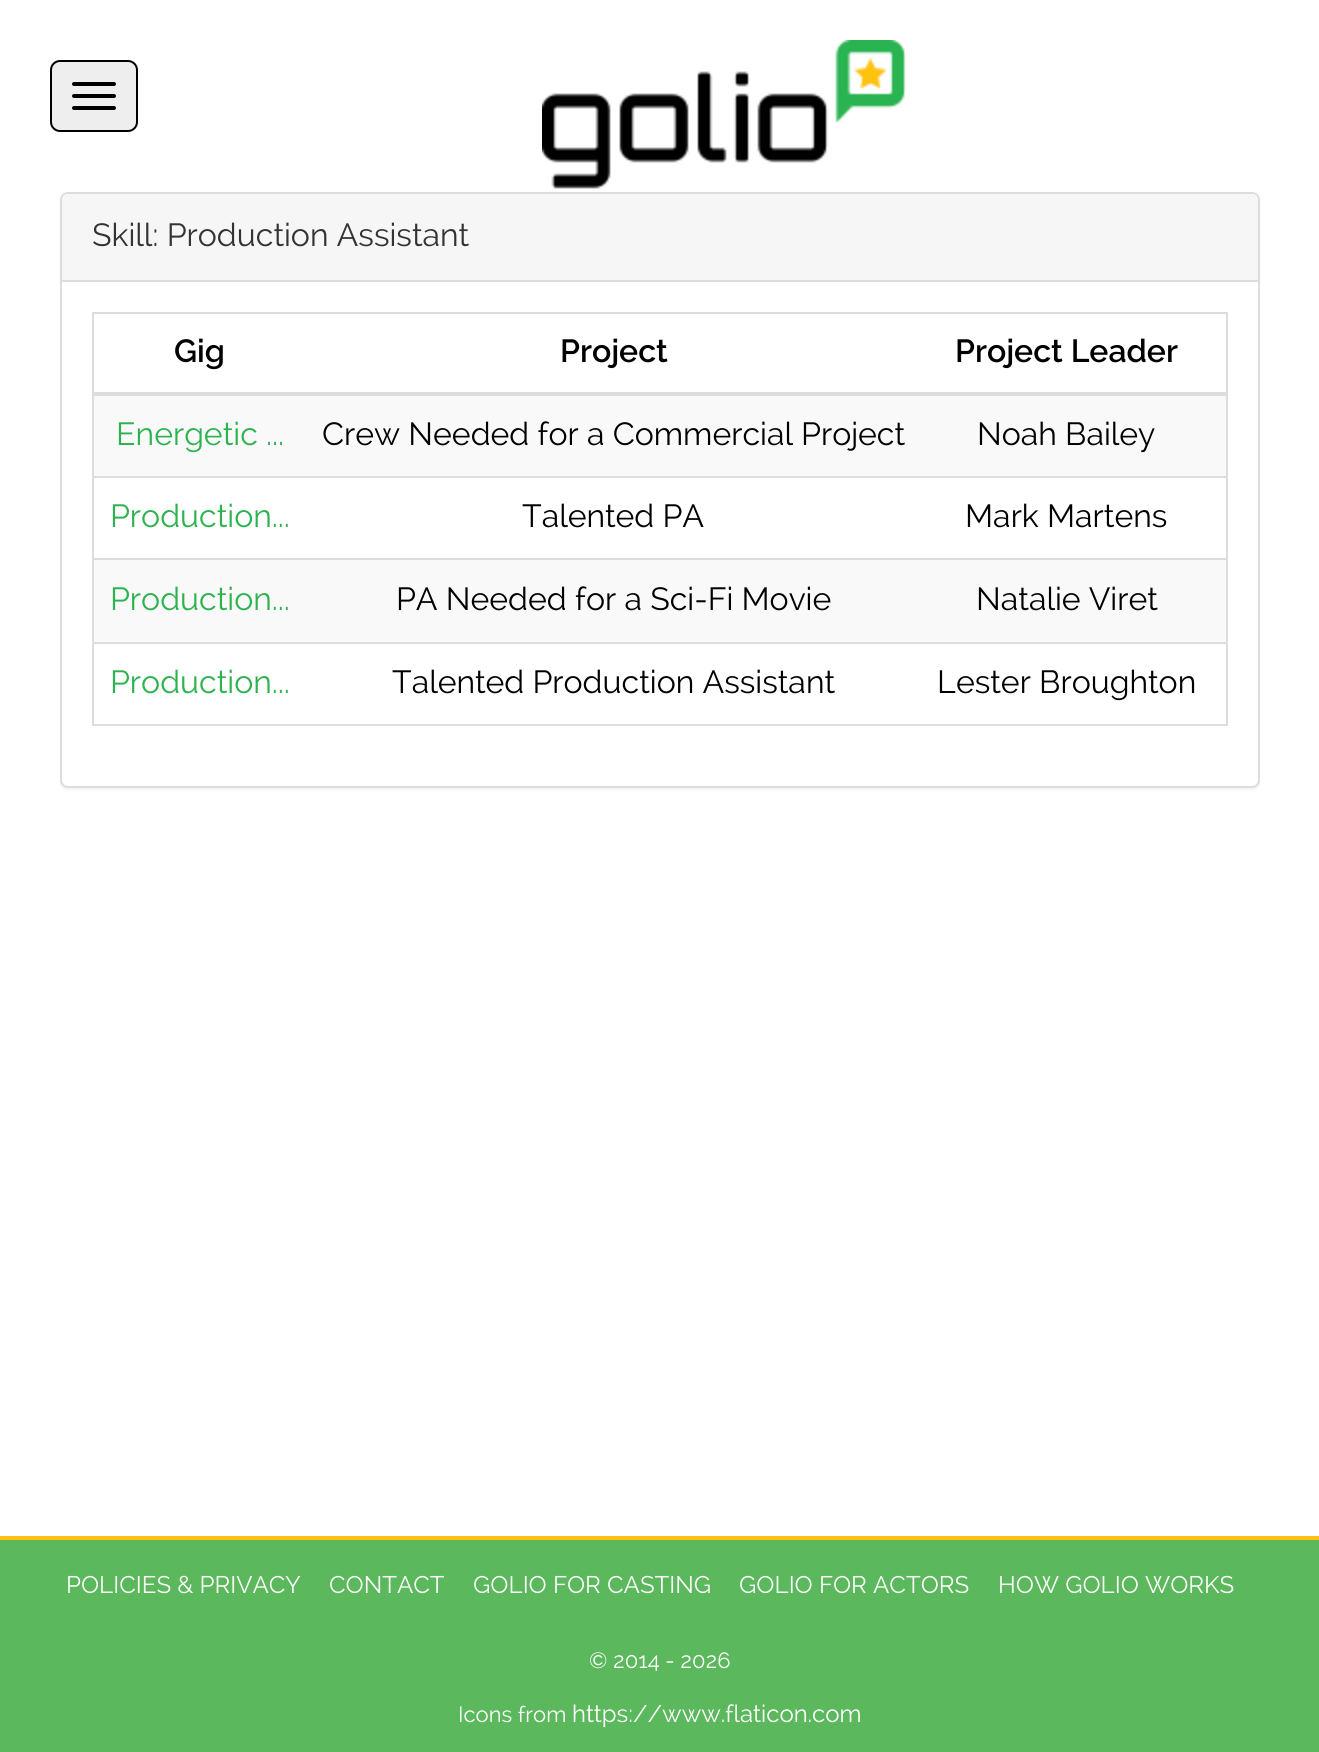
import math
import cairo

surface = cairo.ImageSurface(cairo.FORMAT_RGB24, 1319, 1752)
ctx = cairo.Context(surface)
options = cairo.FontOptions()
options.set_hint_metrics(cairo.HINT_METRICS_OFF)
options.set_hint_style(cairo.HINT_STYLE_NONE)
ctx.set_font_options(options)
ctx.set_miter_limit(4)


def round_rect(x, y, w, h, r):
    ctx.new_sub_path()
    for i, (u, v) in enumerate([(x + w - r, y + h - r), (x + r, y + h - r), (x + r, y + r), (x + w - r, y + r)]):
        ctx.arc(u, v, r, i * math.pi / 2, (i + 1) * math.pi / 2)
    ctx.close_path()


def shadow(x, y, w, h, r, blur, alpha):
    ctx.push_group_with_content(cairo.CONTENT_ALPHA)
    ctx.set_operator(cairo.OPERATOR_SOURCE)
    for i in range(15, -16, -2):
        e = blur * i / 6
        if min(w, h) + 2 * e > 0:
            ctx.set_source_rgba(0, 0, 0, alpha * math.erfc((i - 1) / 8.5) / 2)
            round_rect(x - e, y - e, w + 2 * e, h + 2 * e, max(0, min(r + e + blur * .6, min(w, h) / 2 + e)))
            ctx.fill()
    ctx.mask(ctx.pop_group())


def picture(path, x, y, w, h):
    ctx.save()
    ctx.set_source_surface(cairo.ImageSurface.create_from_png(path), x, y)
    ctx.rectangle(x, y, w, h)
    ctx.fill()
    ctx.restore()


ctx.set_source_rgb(1, 1, 1)
ctx.paint()
ctx.set_source_rgb(0.933, 0.933, 0.933)
round_rect(51, 61, 86, 70, 9)
ctx.fill_preserve()
ctx.set_source_rgb(0, 0, 0)
ctx.stroke()
round_rect(72, 82, 44, 4, 2)
ctx.fill()
round_rect(72, 94, 44, 4, 2)
ctx.fill()
round_rect(72, 106, 44, 4, 2)
ctx.fill()
picture("img1.png", 542, 40, 365, 149)
ctx.set_source_rgb(0, 0, 0)
shadow(60, 194, 1200, 596, 8, 1, 0.05)
ctx.set_source_rgb(1, 1, 1)
round_rect(61, 193, 1198, 594, 7)
ctx.fill_preserve()
ctx.set_source_rgb(0.867, 0.867, 0.867)
ctx.stroke()
ctx.set_source_rgb(0.961, 0.961, 0.961)
ctx.new_path()
ctx.move_to(68, 194)
ctx.line_to(1252, 194)
ctx.curve_to(1255.5, 194, 1258, 196.5, 1258, 200)
ctx.line_to(1258, 282)
ctx.line_to(62, 282)
ctx.line_to(62, 200)
ctx.curve_to(62, 196.5, 64.5, 194, 68, 194)
ctx.close_path()
ctx.fill()
ctx.set_source_rgb(0.867, 0.867, 0.867)
ctx.rectangle(62, 280, 1196, 2)
ctx.fill()
ctx.select_font_face("Raleway")
ctx.set_font_size(32)
ctx.set_source_rgb(0.2, 0.2, 0.2)
ctx.move_to(92, 246)
ctx.show_text("Skill: Production Assistant")
ctx.rectangle(93, 313, 1134, 412)
ctx.set_source_rgb(0.867, 0.867, 0.867)
ctx.stroke()
ctx.select_font_face("Raleway SemiBold")
ctx.set_source_rgb(0, 0, 0)
ctx.move_to(174, 362)
ctx.show_text("Gig")
ctx.move_to(560, 362)
ctx.show_text("Project")
ctx.move_to(955, 362)
ctx.show_text("Project Leader")
ctx.set_source_rgb(0.867, 0.867, 0.867)
ctx.rectangle(94, 392, 1132, 4)
ctx.fill()
ctx.set_source_rgb(0.976, 0.976, 0.976)
ctx.rectangle(94, 396, 1132, 80)
ctx.fill()
ctx.select_font_face("Raleway")
ctx.set_source_rgb(0.173, 0.702, 0.314)
ctx.move_to(116, 445)
ctx.show_text("Energetic ...")
ctx.set_source_rgb(0, 0, 0)
ctx.move_to(322, 445)
ctx.show_text("Crew Needed for a Commercial Project")
ctx.move_to(977, 445)
ctx.show_text("Noah Bailey")
ctx.set_source_rgb(0.867, 0.867, 0.867)
ctx.rectangle(94, 476, 1132, 2)
ctx.fill()
ctx.set_source_rgb(0.173, 0.702, 0.314)
ctx.move_to(110, 527)
ctx.show_text("Production...")
ctx.set_source_rgb(0, 0, 0)
ctx.move_to(522, 527)
ctx.show_text("Talented PA")
ctx.move_to(965, 527)
ctx.show_text("Mark Martens")
ctx.set_source_rgb(0.976, 0.976, 0.976)
ctx.rectangle(94, 560, 1132, 82)
ctx.fill()
ctx.set_source_rgb(0.867, 0.867, 0.867)
ctx.rectangle(94, 558, 1132, 2)
ctx.fill()
ctx.set_source_rgb(0.173, 0.702, 0.314)
ctx.move_to(110, 610)
ctx.show_text("Production...")
ctx.set_source_rgb(0, 0, 0)
ctx.move_to(396, 610)
ctx.show_text("PA Needed for a Sci-Fi Movie")
ctx.move_to(976, 610)
ctx.show_text("Natalie Viret")
ctx.set_source_rgb(0.867, 0.867, 0.867)
ctx.rectangle(94, 642, 1132, 2)
ctx.fill()
ctx.set_source_rgb(0.173, 0.702, 0.314)
ctx.move_to(110, 693)
ctx.show_text("Production...")
ctx.set_source_rgb(0, 0, 0)
ctx.move_to(392, 693)
ctx.show_text("Talented Production Assistant")
ctx.move_to(937, 693)
ctx.show_text("Lester Broughton")
ctx.set_source_rgb(0.361, 0.722, 0.361)
ctx.rectangle(0, 1540, 1319, 212)
ctx.fill()
ctx.set_source_rgb(0.992, 0.753, 0.075)
ctx.rectangle(0, 1536, 1319, 4)
ctx.fill()
ctx.set_font_size(24)
ctx.set_source_rgb(1, 1, 1)
ctx.move_to(66, 1593)
ctx.show_text("POLICIES & PRIVACY")
ctx.move_to(329, 1593)
ctx.show_text("CONTACT")
ctx.move_to(473, 1593)
ctx.show_text("GOLIO FOR CASTING")
ctx.move_to(739, 1593)
ctx.show_text("GOLIO FOR ACTORS")
ctx.move_to(998, 1593)
ctx.show_text("HOW GOLIO WORKS")
ctx.set_font_size(22)
ctx.move_to(589, 1668)
ctx.show_text("© 2014 - 2026")
ctx.move_to(458, 1722)
ctx.show_text("Icons from")
ctx.set_font_size(24)
ctx.move_to(572, 1722)
ctx.show_text("https://www.flaticon.com")
surface.write_to_png("page.png")
